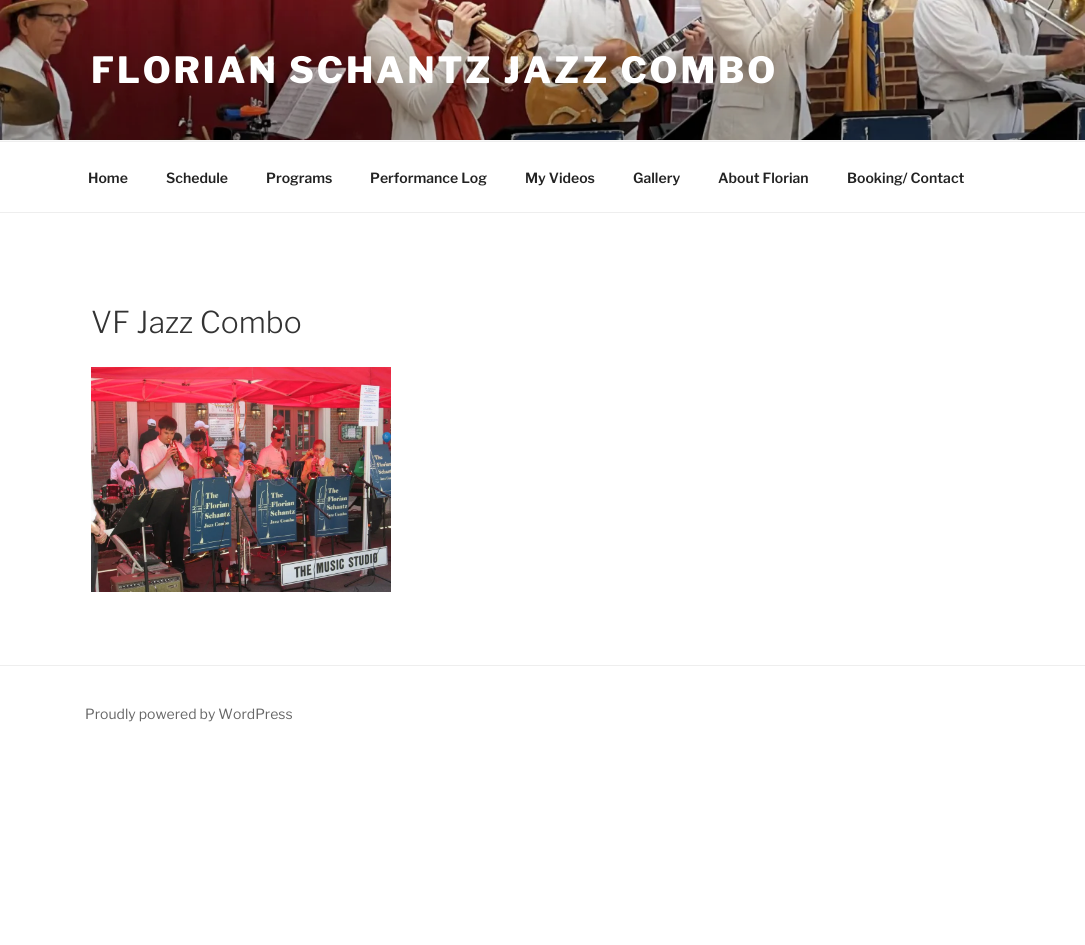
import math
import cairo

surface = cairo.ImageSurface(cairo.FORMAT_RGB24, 1085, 945)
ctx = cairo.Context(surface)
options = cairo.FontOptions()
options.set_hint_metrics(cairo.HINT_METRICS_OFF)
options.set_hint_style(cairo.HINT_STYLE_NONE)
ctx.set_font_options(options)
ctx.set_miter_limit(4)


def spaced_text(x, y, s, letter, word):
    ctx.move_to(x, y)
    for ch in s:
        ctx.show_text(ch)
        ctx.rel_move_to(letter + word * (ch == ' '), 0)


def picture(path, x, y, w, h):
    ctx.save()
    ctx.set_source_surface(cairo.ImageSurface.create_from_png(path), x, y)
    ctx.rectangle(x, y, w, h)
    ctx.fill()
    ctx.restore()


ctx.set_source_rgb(1, 1, 1)
ctx.paint()
ctx.set_source_rgb(0.98, 0.98, 0.98)
ctx.rectangle(0, 140, 1085, 1)
ctx.fill()
picture("img1.png", 0, 0, 1085, 140)
ctx.select_font_face("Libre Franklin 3 Thin")
ctx.set_font_size(36)
ctx.set_source_rgb(1, 1, 1)
spaced_text(91, 83, "FLORIAN SCHANTZ JAZZ COMBO", 2.9, 0)
ctx.set_source_rgb(0.933, 0.933, 0.933)
ctx.rectangle(0, 141, 1085, 1)
ctx.fill()
ctx.rectangle(0, 212, 1085, 1)
ctx.fill()
ctx.select_font_face("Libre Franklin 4 Thin")
ctx.set_font_size(14)
ctx.set_source_rgb(0.133, 0.133, 0.133)
ctx.move_to(88, 183)
ctx.show_text("Home")
ctx.move_to(166, 183)
ctx.show_text("Schedule")
ctx.move_to(266, 183)
ctx.show_text("Programs")
ctx.move_to(370, 183)
ctx.show_text("Performance Log")
ctx.move_to(525, 183)
ctx.show_text("My Videos")
ctx.move_to(633, 183)
ctx.show_text("Gallery")
ctx.move_to(718, 183)
ctx.show_text("About Florian")
ctx.move_to(847, 183)
ctx.show_text("Booking/ Contact")
ctx.select_font_face("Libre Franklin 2 Thin")
ctx.set_font_size(30)
ctx.set_source_rgb(0.2, 0.2, 0.2)
ctx.move_to(91, 333)
ctx.show_text("VF Jazz Combo")
picture("img2.png", 91, 367, 300, 225)
ctx.set_source_rgb(0.933, 0.933, 0.933)
ctx.rectangle(0, 665, 1085, 1)
ctx.fill()
ctx.select_font_face("Libre Franklin Thin")
ctx.set_font_size(14)
ctx.set_source_rgb(0.4, 0.4, 0.4)
ctx.move_to(85, 719)
ctx.show_text("Proudly powered by WordPress")
surface.write_to_png("page.png")
